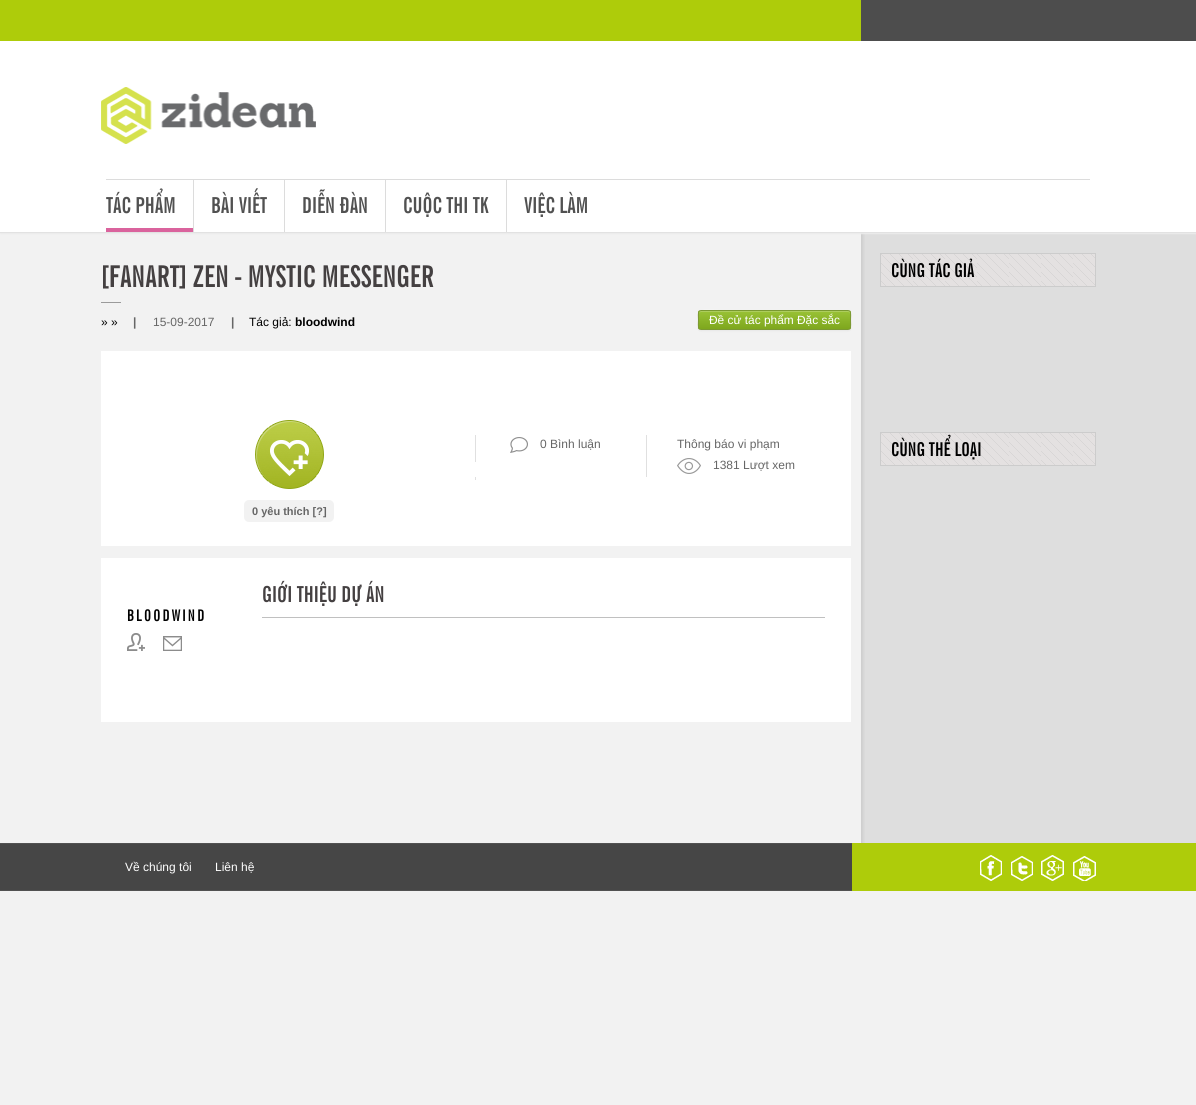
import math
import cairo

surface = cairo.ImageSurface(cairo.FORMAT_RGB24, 1196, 1105)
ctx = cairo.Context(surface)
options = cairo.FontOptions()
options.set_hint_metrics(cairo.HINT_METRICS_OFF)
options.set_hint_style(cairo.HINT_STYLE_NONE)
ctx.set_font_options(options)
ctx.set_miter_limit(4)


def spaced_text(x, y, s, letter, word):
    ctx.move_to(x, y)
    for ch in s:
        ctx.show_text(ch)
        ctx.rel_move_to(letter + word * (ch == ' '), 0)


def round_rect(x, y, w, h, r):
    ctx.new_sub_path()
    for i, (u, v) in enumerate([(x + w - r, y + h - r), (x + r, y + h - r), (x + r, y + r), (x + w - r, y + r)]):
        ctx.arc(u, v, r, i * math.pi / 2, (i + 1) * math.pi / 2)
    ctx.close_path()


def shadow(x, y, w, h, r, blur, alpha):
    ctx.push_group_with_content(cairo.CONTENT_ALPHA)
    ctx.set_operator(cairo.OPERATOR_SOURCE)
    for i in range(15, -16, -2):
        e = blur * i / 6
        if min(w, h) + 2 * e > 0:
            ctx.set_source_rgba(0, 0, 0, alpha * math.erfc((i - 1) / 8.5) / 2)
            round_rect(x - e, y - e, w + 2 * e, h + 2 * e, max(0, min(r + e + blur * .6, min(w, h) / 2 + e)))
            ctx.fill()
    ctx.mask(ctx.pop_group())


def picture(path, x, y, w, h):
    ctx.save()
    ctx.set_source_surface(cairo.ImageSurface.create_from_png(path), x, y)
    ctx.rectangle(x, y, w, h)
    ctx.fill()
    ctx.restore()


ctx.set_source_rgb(0.949, 0.949, 0.949)
ctx.paint()
picture("img3.png", 861, 233, 335, 610)
ctx.set_source_rgb(0.925, 0.925, 0.925)
shadow(0, 1, 1196, 233, 0, 0.5, 1)
ctx.set_source_rgb(1, 1, 1)
ctx.rectangle(0, 41, 1196, 191)
ctx.fill()
ctx.set_source_rgb(0.886, 0.886, 0.886)
ctx.rectangle(0, 232, 1196, 1)
ctx.fill()
picture("img1.png", 0, 0, 1196, 41)
picture("img2.png", 101, 87, 215, 57)
ctx.set_source_rgb(0.863, 0.863, 0.863)
ctx.rectangle(106, 179, 984, 1)
ctx.fill()
ctx.set_source_rgb(0.855, 0.388, 0.616)
ctx.rectangle(106, 228, 87, 4)
ctx.fill()
ctx.select_font_face("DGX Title", cairo.FONT_SLANT_NORMAL, cairo.FONT_WEIGHT_BOLD)
ctx.set_font_size(22)
ctx.set_source_rgb(0.318, 0.318, 0.318)
ctx.move_to(106, 213)
ctx.show_text("TÁC PHẨM")
ctx.set_source_rgb(0.863, 0.863, 0.863)
ctx.rectangle(193, 180, 1, 52)
ctx.fill()
ctx.set_source_rgb(0.318, 0.318, 0.318)
ctx.move_to(211, 213)
ctx.show_text("BÀI VIẾT")
ctx.set_source_rgb(0.863, 0.863, 0.863)
ctx.rectangle(284, 180, 1, 52)
ctx.fill()
ctx.set_source_rgb(0.318, 0.318, 0.318)
ctx.move_to(302, 213)
ctx.show_text("DIỄN ĐÀN")
ctx.set_source_rgb(0.863, 0.863, 0.863)
ctx.rectangle(385, 180, 1, 52)
ctx.fill()
ctx.set_source_rgb(0.318, 0.318, 0.318)
ctx.move_to(403, 213)
ctx.show_text("CUỘC THI TK")
ctx.set_source_rgb(0.863, 0.863, 0.863)
ctx.rectangle(506, 180, 1, 52)
ctx.fill()
ctx.set_source_rgb(0.318, 0.318, 0.318)
ctx.move_to(524, 213)
ctx.show_text("VIỆC LÀM")
ctx.set_source_rgb(0.608, 0.608, 0.608)
ctx.rectangle(101, 302, 20, 1)
ctx.fill()
ctx.set_font_size(30)
ctx.set_source_rgb(0.267, 0.251, 0.255)
ctx.move_to(101, 287)
ctx.show_text("[FANART] ZEN - MYSTIC MESSENGER")
ctx.select_font_face("Liberation Sans")
ctx.set_font_size(12)
ctx.set_source_rgb(0, 0, 0)
ctx.move_to(101, 326)
ctx.show_text("» »")
ctx.select_font_face("Liberation Sans", cairo.FONT_SLANT_NORMAL, cairo.FONT_WEIGHT_BOLD)
ctx.set_source_rgb(0.4, 0.4, 0.4)
ctx.move_to(133, 326)
ctx.show_text("|")
ctx.select_font_face("Liberation Sans")
ctx.move_to(153, 326)
ctx.show_text("15-09-2017")
ctx.select_font_face("Liberation Sans", cairo.FONT_SLANT_NORMAL, cairo.FONT_WEIGHT_BOLD)
ctx.move_to(231, 326)
ctx.show_text("|")
ctx.select_font_face("Liberation Sans")
ctx.set_source_rgb(0, 0, 0)
ctx.move_to(249, 326)
ctx.show_text("Tác giả:")
ctx.select_font_face("Liberation Sans", cairo.FONT_SLANT_NORMAL, cairo.FONT_WEIGHT_BOLD)
ctx.move_to(295, 326)
ctx.show_text("bloodwind")
ctx.set_source_rgb(0, 0, 0)
shadow(698, 311, 153, 20, 3, 1, 0.05)
ctx.save()
round_rect(698, 310, 153, 20, 3)
ctx.clip()
gradient = cairo.LinearGradient(775, 311, 775, 329)
gradient.add_color_stop_rgba(0, 0.6, 0.761, 0.212, 1)
gradient.add_color_stop_rgba(1, 0.494, 0.655, 0.114, 1)
ctx.set_source(gradient)
ctx.rectangle(698, 311, 153, 18)
ctx.fill()
ctx.restore()
ctx.set_source_rgba(1, 1, 1, 0.2)
ctx.new_path()
ctx.move_to(701, 312)
ctx.line_to(848, 312)
ctx.curve_to(849, 312, 850, 313, 850, 314)
ctx.curve_to(850, 313, 850, 312, 849, 311)
ctx.line_to(726, 311)
ctx.curve_to(723, 311, 699, 305, 699, 314)
ctx.curve_to(699, 313, 700, 312, 701, 312)
ctx.close_path()
ctx.fill()
ctx.new_path()
ctx.move_to(699, 311)
ctx.line_to(701, 310.5)
ctx.line_to(848, 310.5)
ctx.line_to(850, 311)
ctx.set_source_rgb(0.478, 0.6, 0.196)
ctx.set_line_width(1)
ctx.stroke()
ctx.new_path()
ctx.move_to(850, 311)
ctx.curve_to(851, 312.5, 850.5, 318, 850.5, 320)
ctx.curve_to(850.5, 322, 851, 327.5, 850, 329)
ctx.set_source_rgb(0.486, 0.596, 0.204)
ctx.stroke()
ctx.new_path()
ctx.move_to(850, 329)
ctx.line_to(848, 329.5)
ctx.line_to(701, 329.5)
ctx.line_to(699, 329)
ctx.set_source_rgb(0.478, 0.6, 0.196)
ctx.stroke()
ctx.new_path()
ctx.move_to(699, 329)
ctx.curve_to(698, 327.5, 698.5, 322, 698.5, 320)
ctx.curve_to(698.5, 318, 698, 312.5, 699, 311)
ctx.set_source_rgb(0.486, 0.596, 0.204)
ctx.stroke()
ctx.select_font_face("Liberation Sans")
ctx.set_font_size(11.9)
ctx.set_source_rgb(1, 1, 1)
ctx.move_to(709, 324)
ctx.show_text("Đề cử tác phẩm Đặc sắc")
ctx.rectangle(101, 351, 750, 195)
ctx.fill()
ctx.set_source_rgb(0.878, 0.878, 0.878)
ctx.rectangle(475, 435, 1, 27)
ctx.fill()
picture("img4.png", 510, 437, 18, 16)
ctx.set_font_size(12)
ctx.set_source_rgb(0.4, 0.4, 0.4)
ctx.move_to(540, 448)
ctx.show_text("0 Bình luận")
ctx.set_source_rgb(0.878, 0.878, 0.878)
ctx.rectangle(646, 435, 1, 42)
ctx.fill()
ctx.set_source_rgb(0.4, 0.4, 0.4)
ctx.move_to(677, 448)
ctx.show_text("Thông báo vi phạm")
picture("img5.png", 677, 458, 24, 16)
ctx.move_to(713, 469)
ctx.show_text("1381 Lượt xem")
ctx.set_source_rgb(0.878, 0.878, 0.878)
ctx.rectangle(475, 477, 1, 3)
ctx.fill()
picture("img6.png", 255, 420, 69, 69)
ctx.set_source_rgb(0.949, 0.949, 0.949)
round_rect(244, 500, 90, 22, 5)
ctx.fill()
ctx.select_font_face("Liberation Sans", cairo.FONT_SLANT_NORMAL, cairo.FONT_WEIGHT_BOLD)
ctx.set_font_size(11)
ctx.set_source_rgb(0.4, 0.4, 0.4)
ctx.move_to(252, 515)
ctx.show_text("0 yêu thích [?]")
ctx.set_source_rgb(1, 1, 1)
ctx.rectangle(101, 558, 750, 164)
ctx.fill()
ctx.set_source_rgb(0.753, 0.753, 0.753)
ctx.rectangle(262, 617, 563, 1)
ctx.fill()
ctx.select_font_face("DGX Title", cairo.FONT_SLANT_NORMAL, cairo.FONT_WEIGHT_BOLD)
ctx.set_font_size(22)
ctx.set_source_rgb(0.267, 0.251, 0.255)
ctx.move_to(262, 602)
ctx.show_text("GIỚI THIỆU DỰ ÁN")
ctx.set_font_size(16)
ctx.set_source_rgb(0, 0, 0)
spaced_text(127, 621, "BLOODWIND", 2, 0)
picture("img7.png", 127, 633, 18, 18)
picture("img8.png", 163, 636, 19, 15)
picture("img9.png", 881, 254, 214, 32)
ctx.rectangle(880.5, 253.5, 215, 33)
ctx.set_source_rgb(0.8, 0.8, 0.8)
ctx.stroke()
ctx.set_font_size(19)
ctx.set_source_rgb(0, 0, 0)
ctx.move_to(891, 277)
ctx.show_text("CÙNG TÁC GIẢ")
picture("img9.png", 881, 433, 214, 32)
ctx.rectangle(880.5, 432.5, 215, 33)
ctx.set_source_rgb(0.8, 0.8, 0.8)
ctx.stroke()
ctx.set_source_rgb(0, 0, 0)
ctx.move_to(891, 456)
ctx.show_text("CÙNG THỂ LOẠI")
picture("img10.png", 0, 843, 1196, 48)
ctx.select_font_face("Liberation Sans")
ctx.set_font_size(12)
ctx.set_source_rgb(1, 1, 1)
ctx.move_to(125, 871)
ctx.show_text("Về chúng tôi")
ctx.move_to(215, 871)
ctx.show_text("Liên hệ")
picture("img11.png", 980, 855, 22, 26)
picture("img12.png", 1011, 856, 22, 25)
picture("img13.png", 1041, 855, 23, 26)
picture("img14.png", 1073, 856, 23, 25)
surface.write_to_png("page.png")
